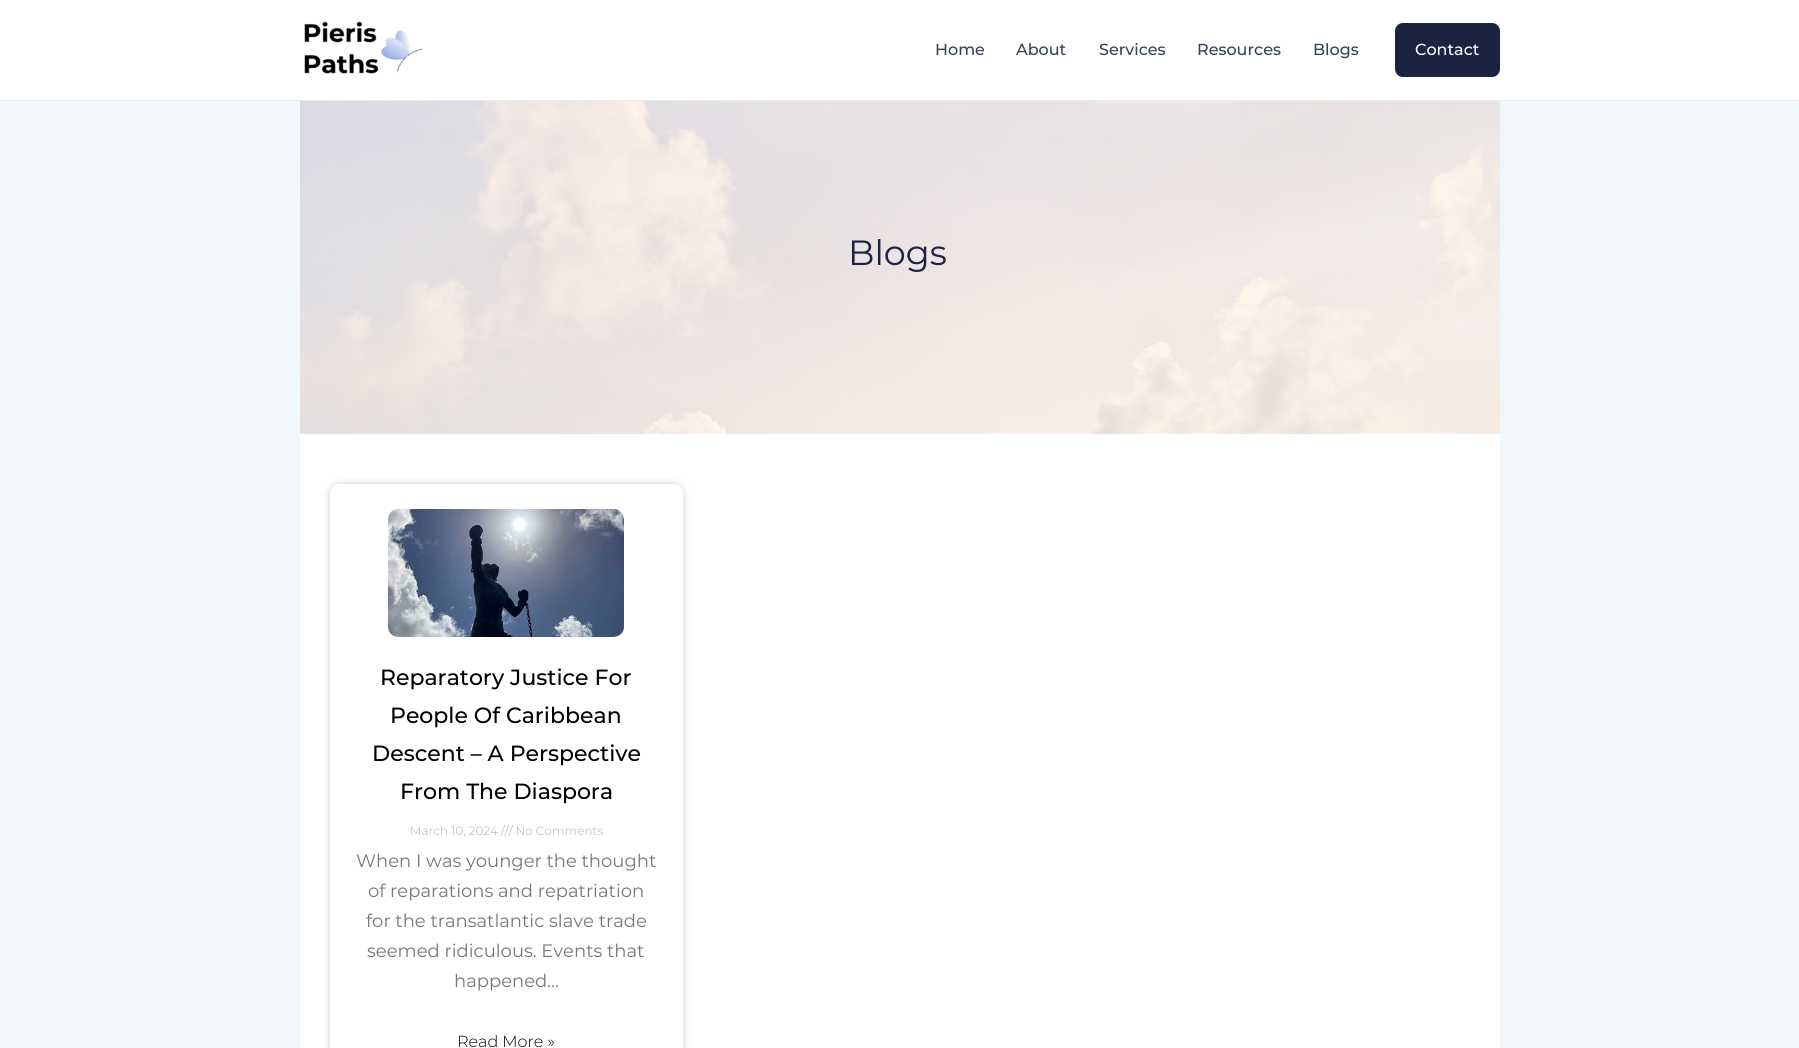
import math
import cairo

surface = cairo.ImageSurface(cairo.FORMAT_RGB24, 1799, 1048)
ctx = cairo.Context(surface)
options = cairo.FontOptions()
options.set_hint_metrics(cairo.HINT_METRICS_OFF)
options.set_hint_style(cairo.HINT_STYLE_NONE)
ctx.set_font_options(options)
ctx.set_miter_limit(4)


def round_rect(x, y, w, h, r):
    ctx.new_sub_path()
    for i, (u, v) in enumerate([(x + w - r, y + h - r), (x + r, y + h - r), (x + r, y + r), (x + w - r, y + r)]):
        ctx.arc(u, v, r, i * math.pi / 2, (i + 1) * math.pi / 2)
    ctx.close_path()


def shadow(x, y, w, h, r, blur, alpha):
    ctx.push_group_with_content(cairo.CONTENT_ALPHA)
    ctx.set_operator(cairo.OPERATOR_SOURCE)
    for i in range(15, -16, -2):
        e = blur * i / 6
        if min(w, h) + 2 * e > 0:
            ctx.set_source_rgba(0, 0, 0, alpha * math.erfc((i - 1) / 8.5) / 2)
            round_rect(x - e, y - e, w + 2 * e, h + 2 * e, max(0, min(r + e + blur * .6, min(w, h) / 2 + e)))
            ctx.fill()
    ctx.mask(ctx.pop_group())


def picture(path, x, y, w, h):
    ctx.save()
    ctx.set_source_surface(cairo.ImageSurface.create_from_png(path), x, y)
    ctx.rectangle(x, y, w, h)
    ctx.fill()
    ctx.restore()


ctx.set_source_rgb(0.941, 0.961, 0.98)
ctx.paint()
ctx.set_source_rgb(1, 1, 1)
ctx.rectangle(0, 0, 1799, 100)
ctx.fill()
ctx.set_source_rgb(0.918, 0.918, 0.918)
ctx.rectangle(0, 100, 1799, 1)
ctx.fill()
picture("img1.png", 304, 21, 119, 53)
ctx.select_font_face("Montserrat Medium")
ctx.set_font_size(16)
ctx.set_source_rgb(0.2, 0.255, 0.333)
ctx.move_to(935, 55)
ctx.show_text("Home")
ctx.move_to(1016, 55)
ctx.show_text("About")
ctx.move_to(1099, 55)
ctx.show_text("Services")
ctx.move_to(1197, 55)
ctx.show_text("Resources")
ctx.move_to(1313, 55)
ctx.show_text("Blogs")
ctx.set_source_rgb(0.11, 0.137, 0.255)
round_rect(1395, 23, 105, 54, 8)
ctx.fill()
ctx.set_source_rgb(1, 1, 1)
ctx.move_to(1415, 55)
ctx.show_text("Contact")
picture("img2.png", 300, 101, 1200, 333)
ctx.select_font_face("Montserrat")
ctx.set_font_size(35)
ctx.set_source_rgb(0.11, 0.137, 0.255)
ctx.move_to(848, 265)
ctx.show_text("Blogs")
ctx.set_source_rgb(1, 1, 1)
ctx.rectangle(300, 434, 1200, 614)
ctx.fill()
ctx.save()
ctx.set_fill_rule(cairo.FILL_RULE_EVEN_ODD)
ctx.new_path()
ctx.move_to(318, 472)
ctx.line_to(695, 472)
ctx.line_to(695, 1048)
ctx.line_to(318, 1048)
ctx.close_path()
ctx.move_to(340, 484)
ctx.line_to(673, 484)
ctx.curve_to(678.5, 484, 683, 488.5, 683, 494)
ctx.line_to(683, 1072)
ctx.curve_to(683, 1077.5, 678.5, 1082, 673, 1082)
ctx.line_to(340, 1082)
ctx.curve_to(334.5, 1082, 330, 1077.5, 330, 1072)
ctx.line_to(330, 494)
ctx.curve_to(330, 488.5, 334.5, 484, 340, 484)
ctx.close_path()
ctx.clip()
ctx.set_source_rgb(0, 0, 0)
shadow(334, 488, 345, 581, 6, 5, 0.5)
ctx.restore()
picture("img3.png", 388, 509, 236, 128)
ctx.select_font_face("Montserrat Medium")
ctx.set_font_size(22)
ctx.set_source_rgb(0, 0, 0)
ctx.move_to(380, 685)
ctx.show_text("Reparatory Justice For")
ctx.move_to(390, 723)
ctx.show_text("People Of Caribbean")
ctx.move_to(372, 761)
ctx.show_text("Descent – A Perspective")
ctx.move_to(400, 799)
ctx.show_text("From The Diaspora")
ctx.select_font_face("Montserrat Light")
ctx.set_font_size(12)
ctx.set_source_rgb(0.678, 0.678, 0.678)
ctx.move_to(410, 835)
ctx.show_text("March 10, 2024 /// No Comments")
ctx.select_font_face("Montserrat")
ctx.set_font_size(18)
ctx.set_source_rgb(0.467, 0.467, 0.467)
ctx.move_to(356, 867)
ctx.show_text("When I was younger the thought")
ctx.move_to(368, 897)
ctx.show_text("of reparations and repatriation")
ctx.move_to(366, 927)
ctx.show_text("for the transatlantic slave trade")
ctx.move_to(367, 957)
ctx.show_text("seemed ridiculous. Events that")
ctx.move_to(454, 987)
ctx.show_text("happened…")
ctx.select_font_face("Montserrat Light")
ctx.set_font_size(16)
ctx.set_source_rgb(0, 0, 0)
ctx.move_to(457, 1047)
ctx.show_text("Read More »")
surface.write_to_png("page.png")
